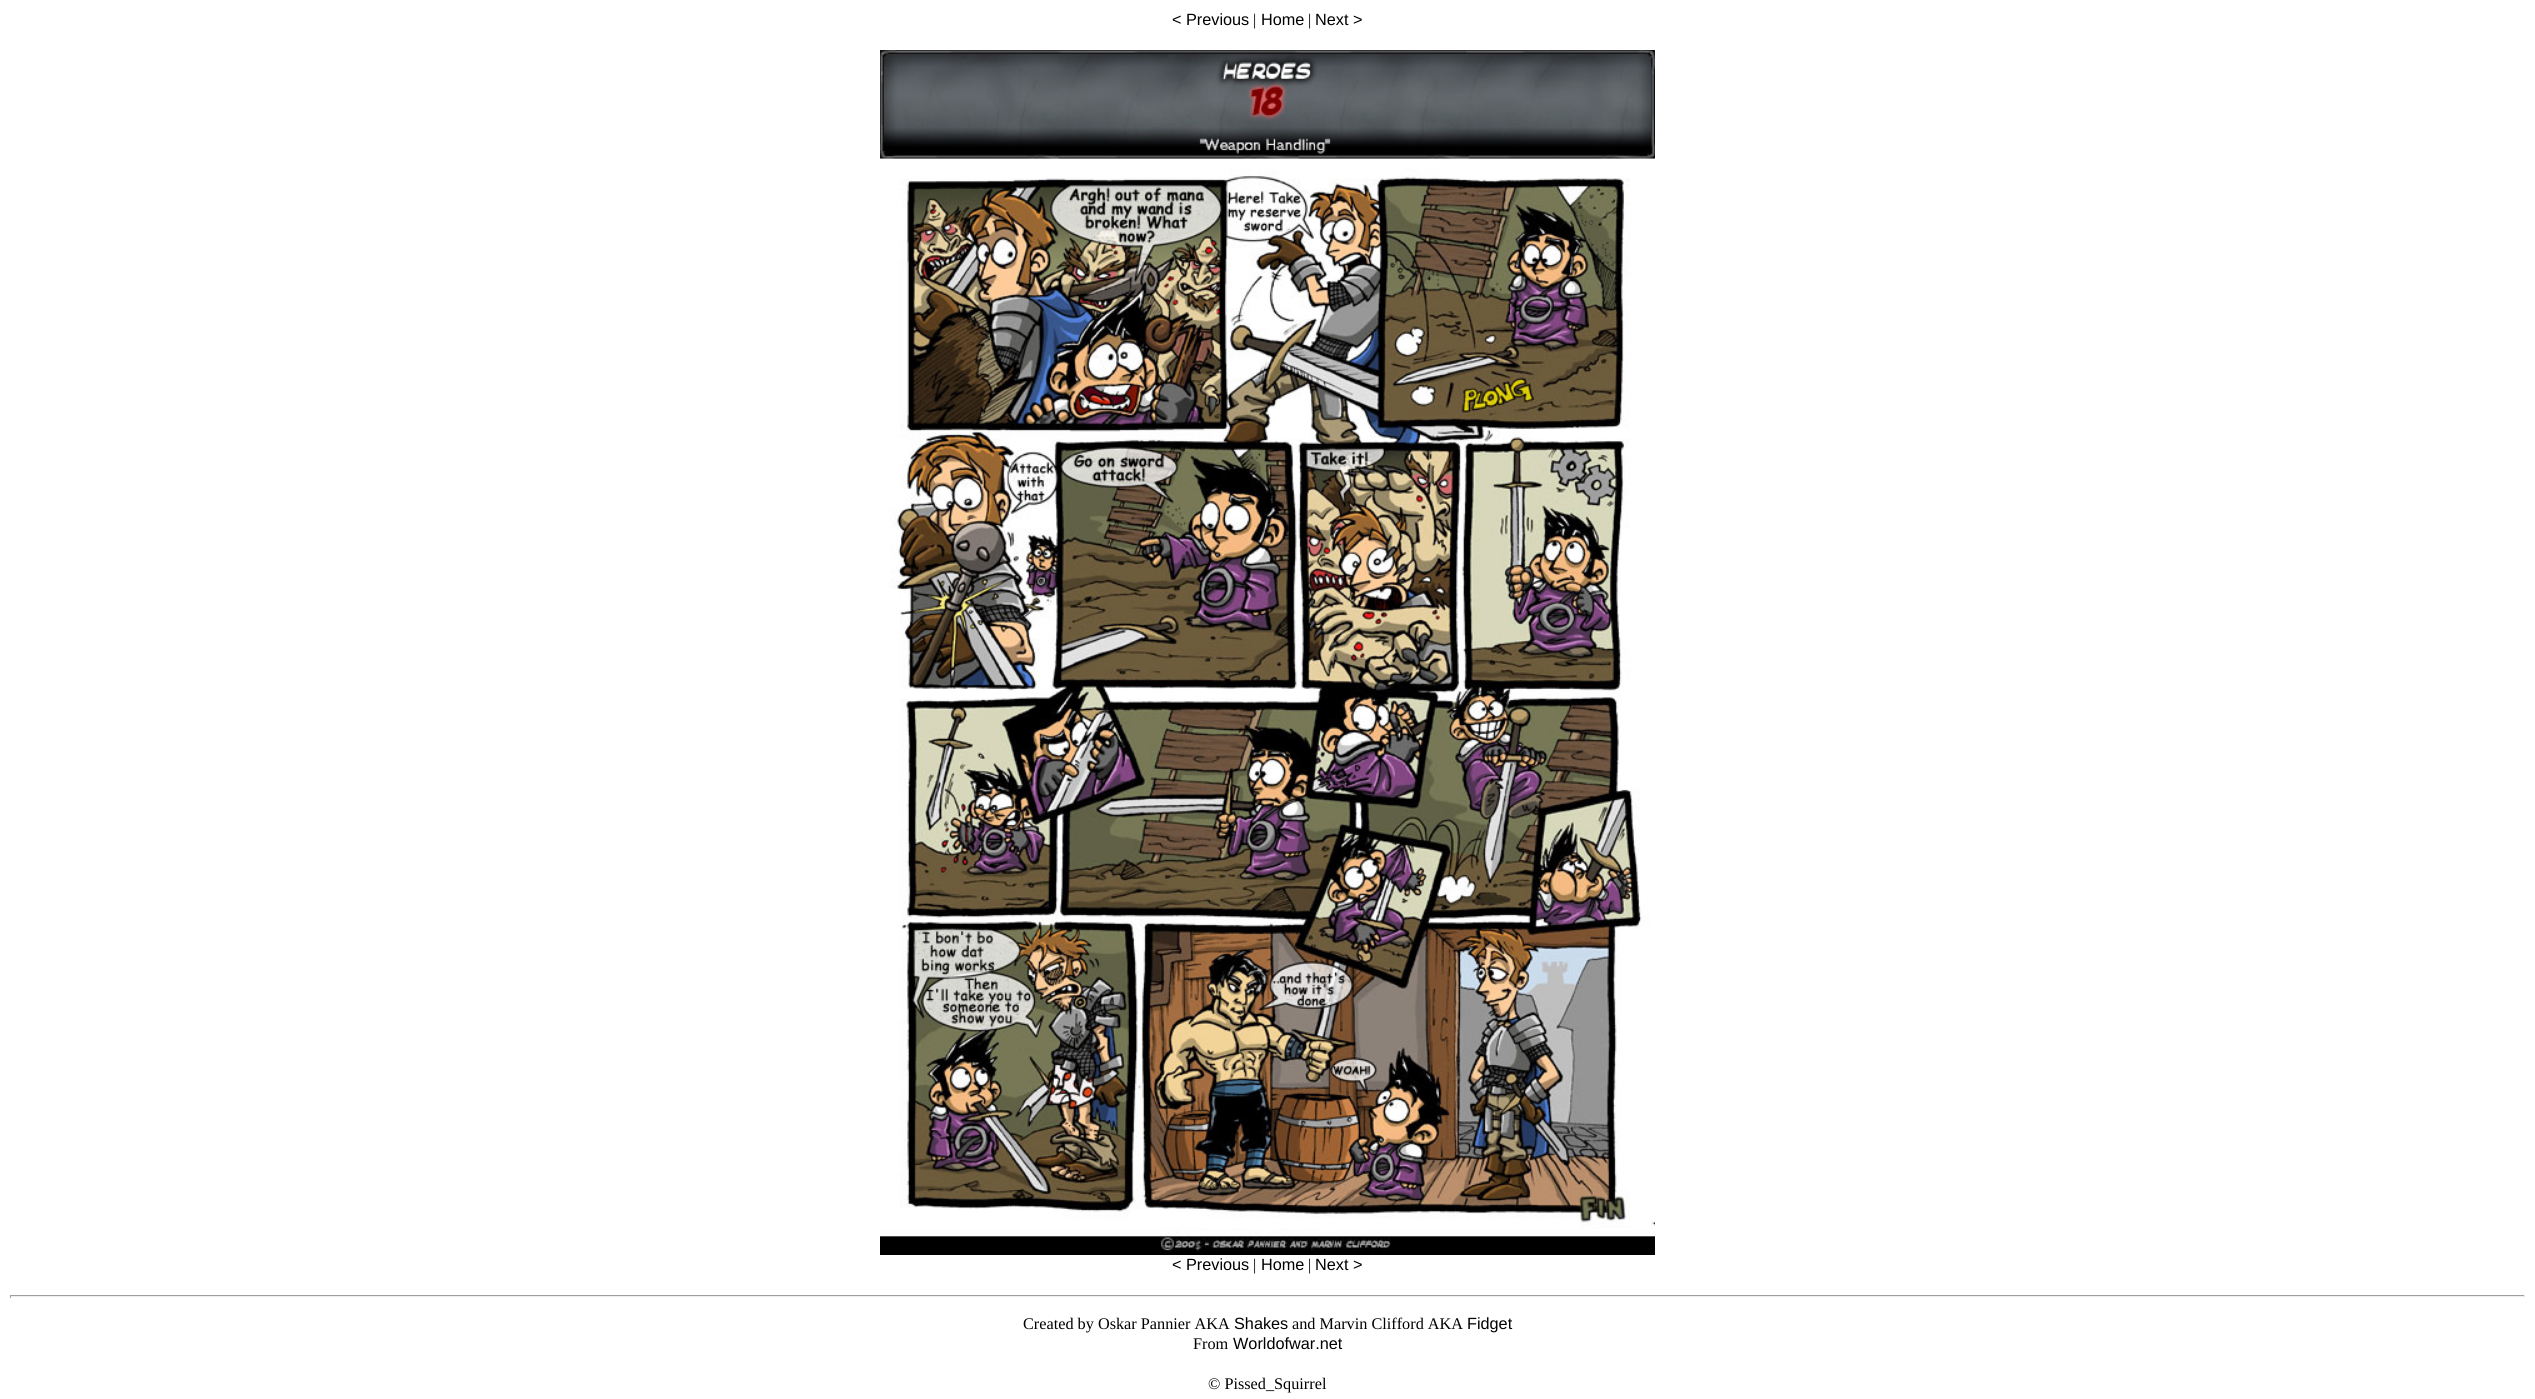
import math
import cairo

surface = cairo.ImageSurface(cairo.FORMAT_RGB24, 2535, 1399)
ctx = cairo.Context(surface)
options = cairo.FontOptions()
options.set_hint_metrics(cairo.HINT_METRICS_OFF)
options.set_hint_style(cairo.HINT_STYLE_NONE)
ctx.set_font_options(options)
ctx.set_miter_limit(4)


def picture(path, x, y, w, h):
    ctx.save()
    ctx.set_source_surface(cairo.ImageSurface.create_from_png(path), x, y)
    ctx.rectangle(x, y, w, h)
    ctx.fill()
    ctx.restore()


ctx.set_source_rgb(1, 1, 1)
ctx.paint()
ctx.select_font_face("Liberation Sans")
ctx.set_font_size(16.25)
ctx.set_source_rgb(0, 0, 0)
ctx.move_to(1172, 25)
ctx.show_text("< Previous")
ctx.select_font_face("Liberation Serif")
ctx.move_to(1253, 25)
ctx.show_text("|")
ctx.select_font_face("Liberation Sans")
ctx.move_to(1261, 25)
ctx.show_text("Home")
ctx.select_font_face("Liberation Serif")
ctx.move_to(1308, 25)
ctx.show_text("|")
ctx.select_font_face("Liberation Sans")
ctx.move_to(1315, 25)
ctx.show_text("Next >")
picture("img1.png", 880, 50, 775, 109)
picture("img2.png", 880, 158, 775, 1097)
ctx.move_to(1172, 1270)
ctx.show_text("< Previous")
ctx.select_font_face("Liberation Serif")
ctx.move_to(1253, 1270)
ctx.show_text("|")
ctx.select_font_face("Liberation Sans")
ctx.move_to(1261, 1270)
ctx.show_text("Home")
ctx.select_font_face("Liberation Serif")
ctx.move_to(1308, 1270)
ctx.show_text("|")
ctx.select_font_face("Liberation Sans")
ctx.move_to(1315, 1270)
ctx.show_text("Next >")
ctx.set_source_rgb(0.624, 0.624, 0.624)
ctx.rectangle(10, 1295, 2515, 1)
ctx.fill()
ctx.set_source_rgb(0.933, 0.933, 0.933)
ctx.rectangle(2524, 1295, 1, 3)
ctx.fill()
ctx.rectangle(10, 1296, 2515, 1)
ctx.fill()
ctx.set_source_rgb(0.624, 0.624, 0.624)
ctx.rectangle(10, 1295, 1, 3)
ctx.fill()
ctx.select_font_face("Liberation Serif")
ctx.set_source_rgb(0, 0, 0)
ctx.move_to(1023, 1329)
ctx.show_text("Created by Oskar Pannier AKA")
ctx.select_font_face("Liberation Sans")
ctx.move_to(1234, 1329)
ctx.show_text("Shakes")
ctx.select_font_face("Liberation Serif")
ctx.move_to(1292, 1329)
ctx.show_text("and Marvin Clifford AKA")
ctx.select_font_face("Liberation Sans")
ctx.move_to(1467, 1329)
ctx.show_text("Fidget")
ctx.select_font_face("Liberation Serif")
ctx.move_to(1193, 1349)
ctx.show_text("From")
ctx.select_font_face("Liberation Sans")
ctx.move_to(1233, 1349)
ctx.show_text("Worldofwar.net")
ctx.select_font_face("Liberation Serif")
ctx.move_to(1208, 1389)
ctx.show_text("© Pissed_Squirrel")
surface.write_to_png("page.png")
